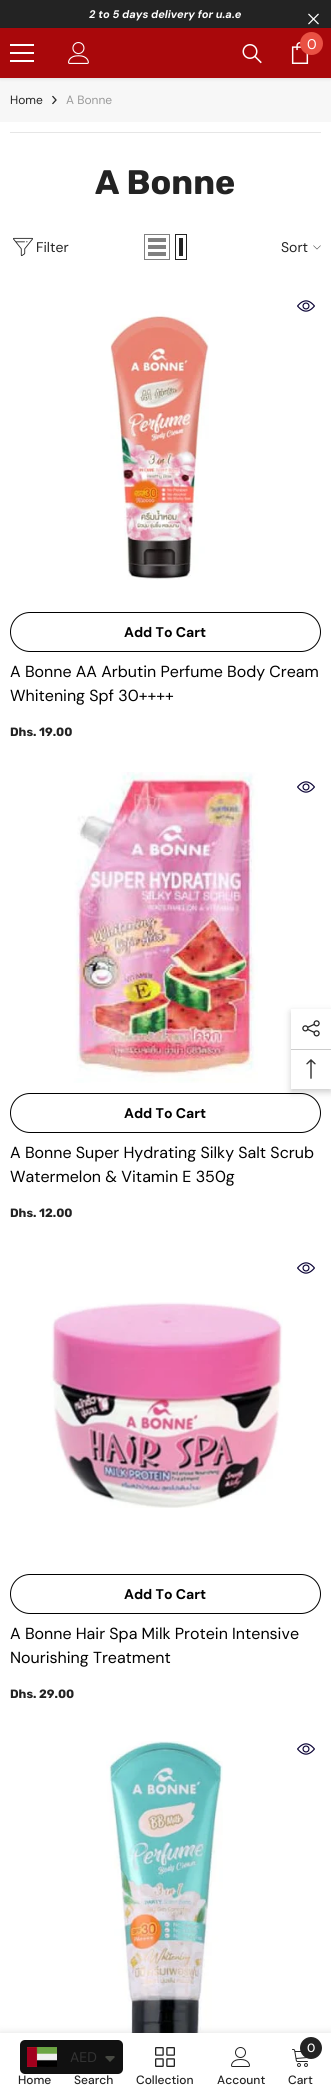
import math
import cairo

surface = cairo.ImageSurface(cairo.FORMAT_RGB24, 331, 2097)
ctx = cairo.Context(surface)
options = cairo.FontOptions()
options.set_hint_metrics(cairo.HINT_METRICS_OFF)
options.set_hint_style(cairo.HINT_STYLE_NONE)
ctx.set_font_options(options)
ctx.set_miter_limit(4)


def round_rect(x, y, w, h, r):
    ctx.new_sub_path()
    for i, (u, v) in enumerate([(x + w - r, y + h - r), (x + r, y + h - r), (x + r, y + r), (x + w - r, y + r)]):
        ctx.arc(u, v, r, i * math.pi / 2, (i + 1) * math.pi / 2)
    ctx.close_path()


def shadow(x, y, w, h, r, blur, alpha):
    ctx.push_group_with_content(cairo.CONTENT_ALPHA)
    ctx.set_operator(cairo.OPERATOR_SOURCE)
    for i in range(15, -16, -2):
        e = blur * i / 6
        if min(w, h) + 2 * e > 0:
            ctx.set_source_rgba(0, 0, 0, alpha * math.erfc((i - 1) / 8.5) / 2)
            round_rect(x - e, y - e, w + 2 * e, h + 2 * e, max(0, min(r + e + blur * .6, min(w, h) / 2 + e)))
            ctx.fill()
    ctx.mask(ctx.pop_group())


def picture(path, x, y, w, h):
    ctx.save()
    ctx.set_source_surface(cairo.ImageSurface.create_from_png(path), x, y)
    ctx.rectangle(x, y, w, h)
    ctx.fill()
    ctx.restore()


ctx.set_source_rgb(1, 1, 1)
ctx.paint()
ctx.set_source_rgb(0.137, 0.137, 0.137)
ctx.rectangle(0, 0, 331, 28)
ctx.fill()
ctx.select_font_face("DM Sans", cairo.FONT_SLANT_ITALIC, cairo.FONT_WEIGHT_BOLD)
ctx.set_font_size(11)
ctx.set_source_rgb(1, 1, 1)
ctx.move_to(89, 18)
ctx.show_text("2 to 5 days delivery for u.a.e")
picture("img1.png", 308, 13, 11, 12)
ctx.set_source_rgb(0.965, 0.965, 0.965)
ctx.rectangle(0, 78, 331, 44)
ctx.fill()
ctx.set_source_rgb(0, 0, 0)
shadow(0, 29, 331, 50, 0, 1.5, 0.1)
ctx.set_source_rgb(0.663, 0.035, 0.043)
ctx.rectangle(0, 28, 331, 50)
ctx.fill()
ctx.set_source_rgb(1, 1, 1)
ctx.rectangle(10, 52, 24, 2)
ctx.fill()
ctx.rectangle(10, 44, 24, 2)
ctx.fill()
ctx.rectangle(10, 60, 24, 2)
ctx.fill()
picture("img2.png", 68, 42, 21, 22)
picture("img3.png", 242, 44, 20, 20)
picture("img4.png", 291, 42, 18, 22)
ctx.set_source_rgb(0.914, 0.318, 0.267)
ctx.arc(311.5, 43.5, 11.5, 0, 2 * math.pi)
ctx.fill()
ctx.select_font_face("DM Sans")
ctx.set_font_size(14)
ctx.set_source_rgb(1, 1, 1)
ctx.move_to(307, 49)
ctx.show_text("0")
ctx.set_font_size(12)
ctx.set_source_rgb(0.137, 0.137, 0.137)
ctx.move_to(10, 104)
ctx.show_text("Home")
picture("img5.png", 52, 95, 5, 10)
ctx.set_source_rgb(0.6, 0.6, 0.6)
ctx.move_to(66, 104)
ctx.show_text("A Bonne")
ctx.set_source_rgb(0.902, 0.902, 0.902)
ctx.rectangle(10, 132, 311, 1)
ctx.fill()
ctx.select_font_face("Rubik", cairo.FONT_SLANT_NORMAL, cairo.FONT_WEIGHT_BOLD)
ctx.set_font_size(34)
ctx.set_source_rgb(0.137, 0.137, 0.137)
ctx.move_to(95, 194)
ctx.show_text("A Bonne")
picture("img6.png", 13, 237, 20, 20)
ctx.select_font_face("DM Sans")
ctx.set_font_size(14)
ctx.move_to(36, 252)
ctx.show_text("Filter")
ctx.rectangle(144.5, 234.5, 25, 25)
ctx.set_source_rgb(0.502, 0.502, 0.502)
ctx.set_line_width(1)
ctx.stroke()
ctx.rectangle(148, 252, 18, 4)
ctx.fill()
ctx.rectangle(148, 245, 18, 4)
ctx.fill()
ctx.rectangle(148, 238, 18, 4)
ctx.fill()
ctx.rectangle(175.5, 234.5, 11, 25)
ctx.set_source_rgb(0.137, 0.137, 0.137)
ctx.stroke()
ctx.rectangle(179, 238, 4, 18)
ctx.fill()
ctx.move_to(281, 252)
ctx.show_text("Sort")
picture("img7.png", 313, 245, 8, 5)
picture("img8.png", 297, 300, 18, 12)
picture("img9.png", 110, 311, 99, 269)
round_rect(10.5, 612.5, 310, 39, 19.5)
ctx.set_source_rgb(0, 0, 0)
ctx.stroke()
ctx.select_font_face("DM Sans", cairo.FONT_SLANT_NORMAL, cairo.FONT_WEIGHT_BOLD)
ctx.move_to(124, 637)
ctx.show_text("Add To Cart")
ctx.select_font_face("DM Sans")
ctx.set_font_size(16)
ctx.move_to(10, 677)
ctx.show_text("A Bonne AA Arbutin Perfume Body Cream")
ctx.move_to(10, 701)
ctx.show_text("Whitening Spf 30++++")
ctx.select_font_face("Rubik", cairo.FONT_SLANT_NORMAL, cairo.FONT_WEIGHT_BOLD)
ctx.set_font_size(12)
ctx.set_source_rgb(0.137, 0.137, 0.137)
ctx.move_to(10, 736)
ctx.show_text("Dhs. 19.00")
picture("img10.png", 73, 772, 185, 311)
picture("img8.png", 297, 781, 18, 12)
round_rect(10.5, 1093.5, 310, 39, 19.5)
ctx.set_source_rgb(0, 0, 0)
ctx.stroke()
ctx.select_font_face("DM Sans", cairo.FONT_SLANT_NORMAL, cairo.FONT_WEIGHT_BOLD)
ctx.set_font_size(14)
ctx.move_to(124, 1118)
ctx.show_text("Add To Cart")
ctx.select_font_face("DM Sans")
ctx.set_font_size(16)
ctx.move_to(10, 1158)
ctx.show_text("A Bonne Super Hydrating Silky Salt Scrub")
ctx.move_to(10, 1182)
ctx.show_text("Watermelon & Vitamin E 350g")
ctx.select_font_face("Rubik", cairo.FONT_SLANT_NORMAL, cairo.FONT_WEIGHT_BOLD)
ctx.set_font_size(12)
ctx.set_source_rgb(0.137, 0.137, 0.137)
ctx.move_to(10, 1217)
ctx.show_text("Dhs. 12.00")
picture("img8.png", 297, 1262, 18, 12)
picture("img11.png", 50, 1302, 233, 206)
round_rect(10.5, 1574.5, 310, 39, 19.5)
ctx.set_source_rgb(0, 0, 0)
ctx.stroke()
ctx.select_font_face("DM Sans", cairo.FONT_SLANT_NORMAL, cairo.FONT_WEIGHT_BOLD)
ctx.set_font_size(14)
ctx.move_to(124, 1599)
ctx.show_text("Add To Cart")
ctx.select_font_face("DM Sans")
ctx.set_font_size(16)
ctx.move_to(10, 1639)
ctx.show_text("A Bonne Hair Spa Milk Protein Intensive")
ctx.move_to(10, 1663)
ctx.show_text("Nourishing Treatment")
ctx.select_font_face("Rubik", cairo.FONT_SLANT_NORMAL, cairo.FONT_WEIGHT_BOLD)
ctx.set_font_size(12)
ctx.set_source_rgb(0.137, 0.137, 0.137)
ctx.move_to(10, 1698)
ctx.show_text("Dhs. 29.00")
picture("img12.png", 106, 1741, 117, 292)
picture("img8.png", 297, 1743, 18, 12)
ctx.set_source_rgb(0, 0, 0)
shadow(0, 2033, 331, 64, 0, 4.5, 0.12)
ctx.set_source_rgb(1, 1, 1)
ctx.rectangle(0, 2033, 331, 64)
ctx.fill()
ctx.select_font_face("DM Sans Medium")
ctx.set_source_rgb(0.137, 0.137, 0.137)
ctx.move_to(18, 2084)
ctx.show_text("Home")
ctx.move_to(74, 2084)
ctx.show_text("Search")
picture("img13.png", 155, 2047, 20, 20)
ctx.move_to(136, 2084)
ctx.show_text("Collection")
picture("img14.png", 231, 2047, 19, 20)
ctx.move_to(217, 2084)
ctx.show_text("Account")
picture("img15.png", 292, 2049, 16, 18)
ctx.arc(311, 2048, 11, 0, 2 * math.pi)
ctx.fill()
ctx.set_source_rgb(1, 1, 1)
ctx.move_to(307, 2052)
ctx.show_text("0")
ctx.set_source_rgb(0.137, 0.137, 0.137)
ctx.move_to(288, 2084)
ctx.show_text("Cart")
ctx.save()
ctx.set_fill_rule(cairo.FILL_RULE_EVEN_ODD)
ctx.new_path()
ctx.move_to(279, 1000)
ctx.line_to(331, 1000)
ctx.line_to(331, 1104)
ctx.line_to(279, 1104)
ctx.close_path()
ctx.move_to(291, 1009)
ctx.line_to(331, 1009)
ctx.line_to(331, 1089)
ctx.line_to(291, 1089)
ctx.close_path()
ctx.clip()
ctx.set_source_rgb(0, 0, 0)
shadow(291, 1012, 40, 80, 0, 3.5, 0.2)
ctx.restore()
picture("img16.png", 302, 1020, 18, 17)
ctx.set_source_rgb(0.8, 0.8, 0.8)
ctx.rectangle(291, 1049, 40, 1)
ctx.fill()
picture("img17.png", 306, 1059, 10, 20)
ctx.set_source_rgb(0.067, 0.067, 0.067)
round_rect(20, 2040, 103, 34, 5)
ctx.fill()
picture("img18.png", 27, 2047, 30, 20)
ctx.select_font_face("DM Sans")
ctx.set_font_size(14)
ctx.set_source_rgb(0.2, 0.2, 0.2)
ctx.move_to(70, 2062)
ctx.show_text("AED")
ctx.set_source_rgb(0.278, 0.286, 0.259)
ctx.new_path()
ctx.move_to(107, 2056)
ctx.curve_to(106, 2056, 105.5, 2056.5, 105, 2057)
ctx.line_to(110, 2062)
ctx.line_to(115, 2057)
ctx.line_to(114, 2056)
ctx.close_path()
ctx.fill()
surface.write_to_png("page.png")
